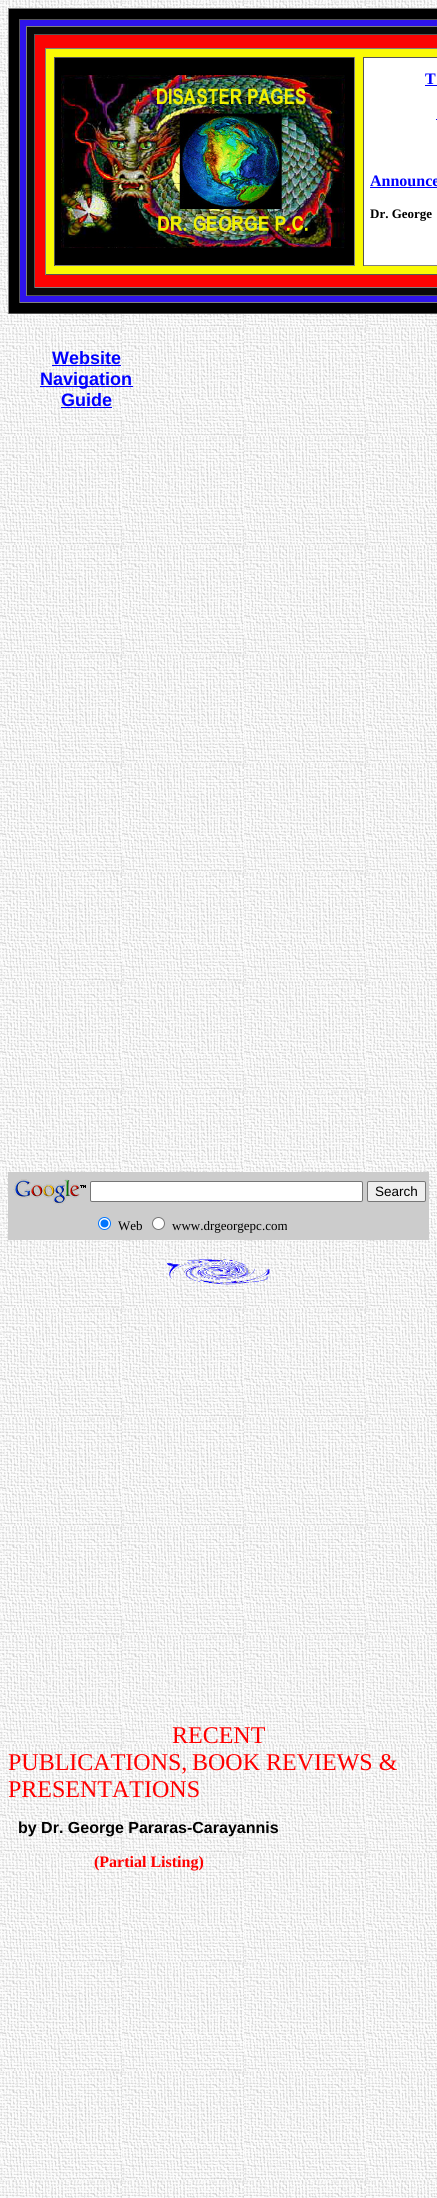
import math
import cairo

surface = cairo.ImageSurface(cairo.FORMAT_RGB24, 437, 2198)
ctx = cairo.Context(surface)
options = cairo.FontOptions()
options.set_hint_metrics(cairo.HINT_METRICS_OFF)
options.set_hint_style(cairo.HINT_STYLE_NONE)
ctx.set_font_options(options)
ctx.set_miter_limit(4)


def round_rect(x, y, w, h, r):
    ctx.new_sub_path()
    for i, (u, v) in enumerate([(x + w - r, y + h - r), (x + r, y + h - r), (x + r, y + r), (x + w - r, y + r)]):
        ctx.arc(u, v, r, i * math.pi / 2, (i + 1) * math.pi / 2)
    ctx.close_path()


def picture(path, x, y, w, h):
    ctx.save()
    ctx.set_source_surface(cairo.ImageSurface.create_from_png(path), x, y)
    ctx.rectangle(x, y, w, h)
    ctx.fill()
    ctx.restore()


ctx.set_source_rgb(1, 1, 1)
ctx.paint()
picture("img1.png", 0, 0, 437, 2198)
ctx.set_source_rgb(0, 0, 0)
ctx.rectangle(9, 9, 428, 304)
ctx.fill()
ctx.set_source_rgb(0.502, 0.502, 0.502)
ctx.rectangle(8, 8, 429, 1)
ctx.fill()
ctx.set_source_rgb(0.333, 0.333, 0.333)
ctx.rectangle(8, 313, 429, 1)
ctx.fill()
ctx.set_source_rgb(0.502, 0.502, 0.502)
ctx.rectangle(8, 8, 1, 306)
ctx.fill()
ctx.set_source_rgb(0.18, 0.075, 0.925)
ctx.rectangle(20, 20, 417, 282)
ctx.fill()
ctx.set_source_rgb(0.333, 0.333, 0.333)
ctx.rectangle(19, 19, 418, 1)
ctx.fill()
ctx.set_source_rgb(0.502, 0.502, 0.502)
ctx.rectangle(19, 302, 418, 1)
ctx.fill()
ctx.set_source_rgb(0.333, 0.333, 0.333)
ctx.rectangle(19, 19, 1, 284)
ctx.fill()
ctx.set_source_rgb(0.039, 0.039, 0.039)
ctx.rectangle(27, 27, 410, 268)
ctx.fill()
ctx.set_source_rgb(0.502, 0.502, 0.502)
ctx.rectangle(26, 26, 411, 1)
ctx.fill()
ctx.set_source_rgb(0.333, 0.333, 0.333)
ctx.rectangle(26, 295, 411, 1)
ctx.fill()
ctx.set_source_rgb(0.502, 0.502, 0.502)
ctx.rectangle(26, 26, 1, 270)
ctx.fill()
ctx.set_source_rgb(0.988, 0.012, 0.012)
ctx.rectangle(35, 35, 402, 252)
ctx.fill()
ctx.set_source_rgb(0.333, 0.333, 0.333)
ctx.rectangle(34, 34, 403, 1)
ctx.fill()
ctx.set_source_rgb(0.502, 0.502, 0.502)
ctx.rectangle(34, 287, 403, 1)
ctx.fill()
ctx.set_source_rgb(0.333, 0.333, 0.333)
ctx.rectangle(34, 34, 1, 254)
ctx.fill()
ctx.set_source_rgb(0.98, 0.98, 0.02)
ctx.rectangle(46, 49, 391, 225)
ctx.fill()
ctx.set_source_rgb(0.502, 0.502, 0.502)
ctx.rectangle(45, 48, 392, 1)
ctx.fill()
ctx.set_source_rgb(0.333, 0.333, 0.333)
ctx.rectangle(45, 274, 392, 1)
ctx.fill()
ctx.set_source_rgb(0.502, 0.502, 0.502)
ctx.rectangle(45, 48, 1, 227)
ctx.fill()
ctx.set_source_rgb(0, 0, 0)
ctx.rectangle(55, 58, 299, 207)
ctx.fill()
ctx.set_source_rgb(0.333, 0.333, 0.333)
ctx.rectangle(54, 57, 301, 1)
ctx.fill()
ctx.set_source_rgb(0.502, 0.502, 0.502)
ctx.rectangle(354, 57, 1, 209)
ctx.fill()
ctx.rectangle(54, 265, 301, 1)
ctx.fill()
ctx.set_source_rgb(0.333, 0.333, 0.333)
ctx.rectangle(54, 57, 1, 209)
ctx.fill()
picture("img2.png", 61, 75, 284, 173)
ctx.set_source_rgb(1, 1, 1)
ctx.rectangle(364, 58, 73, 207)
ctx.fill()
ctx.set_source_rgb(0.333, 0.333, 0.333)
ctx.rectangle(363, 57, 74, 1)
ctx.fill()
ctx.set_source_rgb(0.502, 0.502, 0.502)
ctx.rectangle(363, 265, 74, 1)
ctx.fill()
ctx.set_source_rgb(0.333, 0.333, 0.333)
ctx.rectangle(363, 57, 1, 209)
ctx.fill()
ctx.select_font_face("Liberation Serif", cairo.FONT_SLANT_NORMAL, cairo.FONT_WEIGHT_BOLD)
ctx.set_font_size(16)
ctx.set_source_rgb(0, 0, 1)
ctx.move_to(425, 84)
ctx.show_text("T")
ctx.rectangle(425, 85, 12, 1)
ctx.fill()
ctx.rectangle(436, 119, 1, 1)
ctx.fill()
ctx.move_to(370, 186)
ctx.show_text("Announce")
ctx.rectangle(370, 187, 67, 1)
ctx.fill()
ctx.set_font_size(13)
ctx.set_source_rgb(0, 0, 0)
ctx.move_to(370, 218)
ctx.show_text("Dr. George")
ctx.select_font_face("Liberation Sans", cairo.FONT_SLANT_NORMAL, cairo.FONT_WEIGHT_BOLD)
ctx.set_font_size(18)
ctx.set_source_rgb(0, 0, 1)
ctx.move_to(52, 364)
ctx.show_text("Website")
ctx.rectangle(52, 365, 69, 1)
ctx.fill()
ctx.rectangle(40, 386, 93, 1)
ctx.fill()
ctx.move_to(40, 385)
ctx.show_text("Navigation")
ctx.move_to(61, 406)
ctx.show_text("Guide")
ctx.rectangle(61, 407, 51, 1)
ctx.fill()
ctx.set_source_rgb(0.8, 0.8, 0.8)
ctx.rectangle(8, 1172, 421, 68)
ctx.fill()
picture("img3.png", 13, 1179, 73, 26)
ctx.set_source_rgb(1, 1, 1)
round_rect(90.5, 1181.5, 272, 20, 1.5)
ctx.fill_preserve()
ctx.set_source_rgb(0.463, 0.463, 0.463)
ctx.set_line_width(1)
ctx.stroke()
ctx.set_source_rgb(0.937, 0.937, 0.937)
round_rect(367.5, 1181.5, 58, 20, 1.5)
ctx.fill_preserve()
ctx.set_source_rgb(0.463, 0.463, 0.463)
ctx.stroke()
ctx.select_font_face("Liberation Sans")
ctx.set_font_size(13.5)
ctx.set_source_rgb(0, 0, 0)
ctx.move_to(375, 1196)
ctx.show_text("Search")
ctx.set_source_rgb(1, 1, 1)
ctx.new_path()
ctx.arc(104.5, 1223.5, 6, 0, 2 * math.pi)
ctx.fill_preserve()
ctx.set_source_rgb(0, 0.459, 1)
ctx.stroke()
ctx.arc(104.5, 1223.5, 4, 0, 2 * math.pi)
ctx.fill()
ctx.select_font_face("Liberation Serif")
ctx.set_font_size(13)
ctx.set_source_rgb(0, 0, 0)
ctx.move_to(118, 1230)
ctx.show_text("Web")
ctx.set_source_rgb(1, 1, 1)
ctx.new_path()
ctx.arc(158.5, 1223.5, 6, 0, 2 * math.pi)
ctx.fill_preserve()
ctx.set_source_rgb(0.463, 0.463, 0.463)
ctx.stroke()
ctx.set_source_rgb(0, 0, 0)
ctx.move_to(172, 1230)
ctx.show_text("www.drgeorgepc.com")
picture("img4.png", 167, 1258, 103, 27)
ctx.set_font_size(24)
ctx.set_source_rgb(1, 0, 0)
ctx.move_to(172, 1743)
ctx.show_text("RECENT")
ctx.move_to(8, 1770)
ctx.show_text("PUBLICATIONS,")
ctx.move_to(192, 1770)
ctx.show_text("BOOK REVIEWS &")
ctx.move_to(8, 1797)
ctx.show_text("PRESENTATIONS")
ctx.select_font_face("Liberation Sans", cairo.FONT_SLANT_NORMAL, cairo.FONT_WEIGHT_BOLD)
ctx.set_font_size(16)
ctx.set_source_rgb(0, 0, 0)
ctx.move_to(18, 1833)
ctx.show_text("by Dr. George Pararas-Carayannis")
ctx.select_font_face("Liberation Serif", cairo.FONT_SLANT_NORMAL, cairo.FONT_WEIGHT_BOLD)
ctx.set_source_rgb(1, 0, 0)
ctx.move_to(94, 1867)
ctx.show_text("(Partial Listing)")
surface.write_to_png("page.png")
